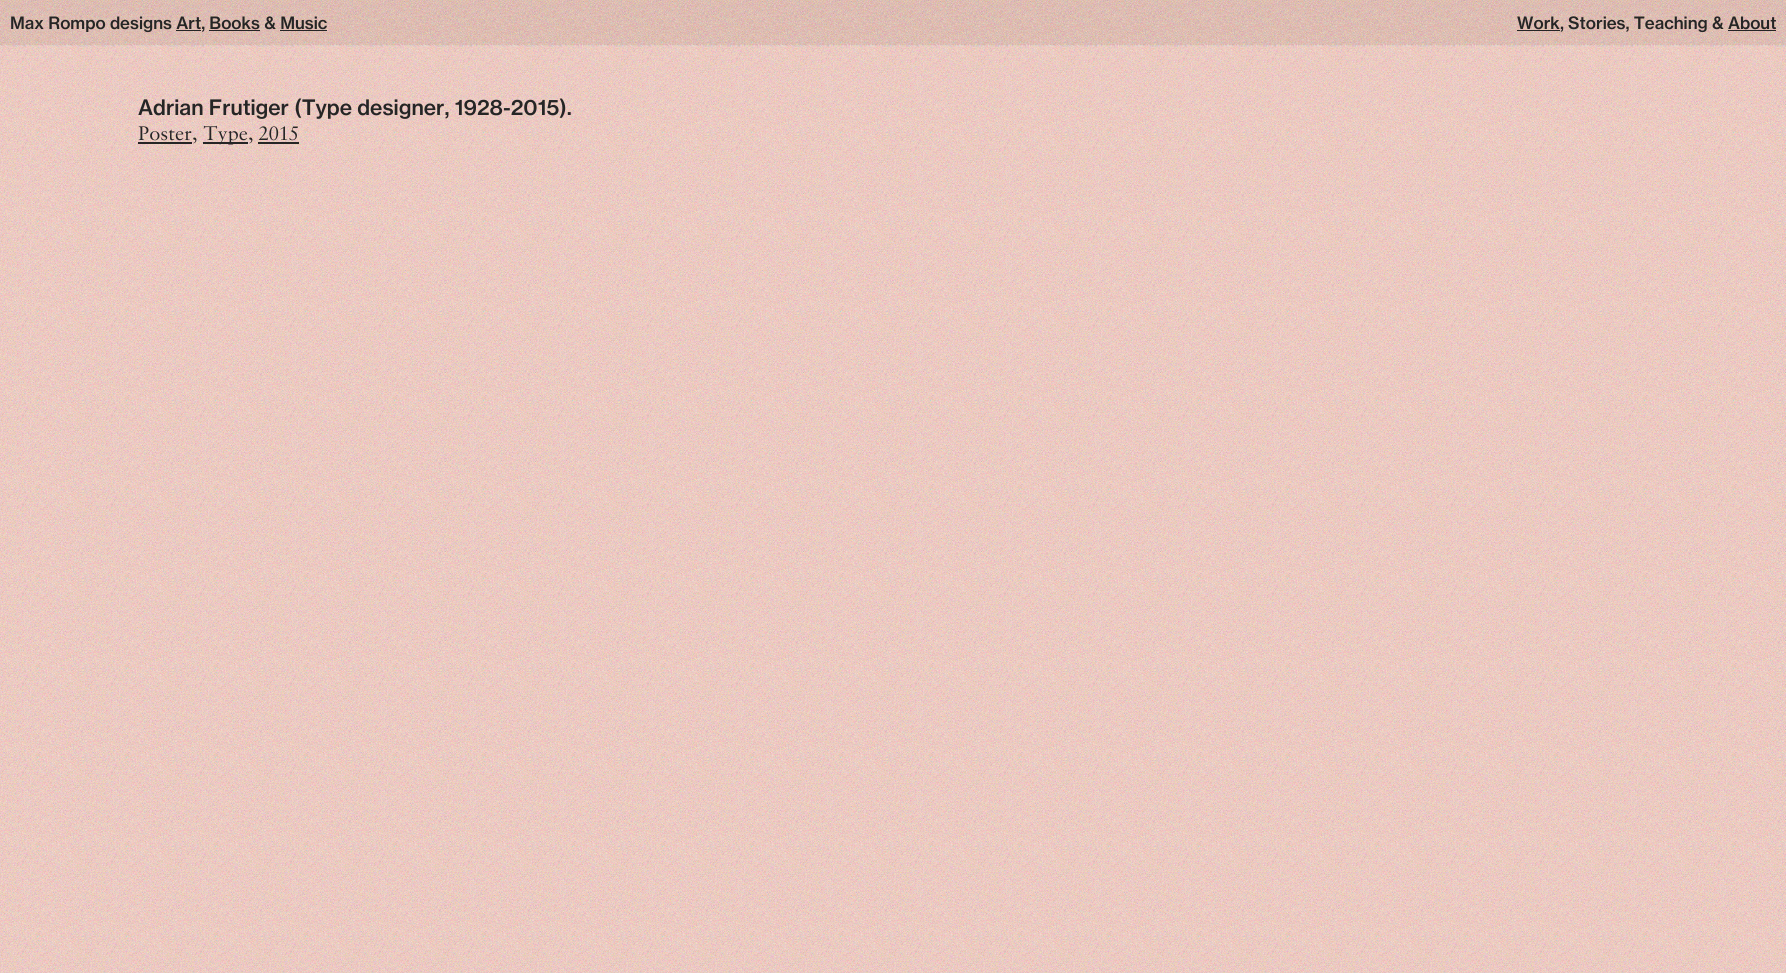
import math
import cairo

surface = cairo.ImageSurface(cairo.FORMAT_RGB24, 1786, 973)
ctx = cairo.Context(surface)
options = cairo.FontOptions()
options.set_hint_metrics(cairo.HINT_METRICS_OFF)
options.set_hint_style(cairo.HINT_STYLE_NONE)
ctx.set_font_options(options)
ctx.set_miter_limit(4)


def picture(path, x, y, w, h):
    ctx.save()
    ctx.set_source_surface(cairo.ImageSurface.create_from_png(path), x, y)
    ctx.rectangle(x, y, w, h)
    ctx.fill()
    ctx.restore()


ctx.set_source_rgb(1, 0.792, 0.741)
ctx.paint()
picture("img1.png", 0, 45, 1786, 928)
ctx.set_source_rgb(0.914, 0.71, 0.647)
ctx.rectangle(0, 0, 1786, 45)
ctx.fill()
picture("img2.png", 0, 0, 1786, 46)
ctx.select_font_face("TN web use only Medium")
ctx.set_font_size(16.8)
ctx.set_source_rgb(0.145, 0.145, 0.145)
ctx.move_to(10, 29)
ctx.show_text("Max Rompo designs Art, Books & Music")
ctx.rectangle(176, 30, 25, 1)
ctx.fill()
ctx.rectangle(209, 30, 51, 1)
ctx.fill()
ctx.rectangle(280, 30, 47, 1)
ctx.fill()
ctx.rectangle(1517, 30, 43, 1)
ctx.fill()
ctx.move_to(1517, 29)
ctx.show_text("Work, Stories, Teaching & About")
ctx.rectangle(1728, 30, 48, 1)
ctx.fill()
ctx.set_font_size(21)
ctx.move_to(138, 115)
ctx.show_text("Adrian Frutiger (Type designer, 1928-2015).")
ctx.rectangle(138, 142, 54, 2)
ctx.fill()
ctx.select_font_face("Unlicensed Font")
ctx.move_to(138, 140)
ctx.show_text("Poster,")
ctx.rectangle(203, 142, 45, 2)
ctx.fill()
ctx.move_to(203, 140)
ctx.show_text("Type, 2015")
ctx.rectangle(258, 142, 41, 2)
ctx.fill()
surface.write_to_png("page.png")
